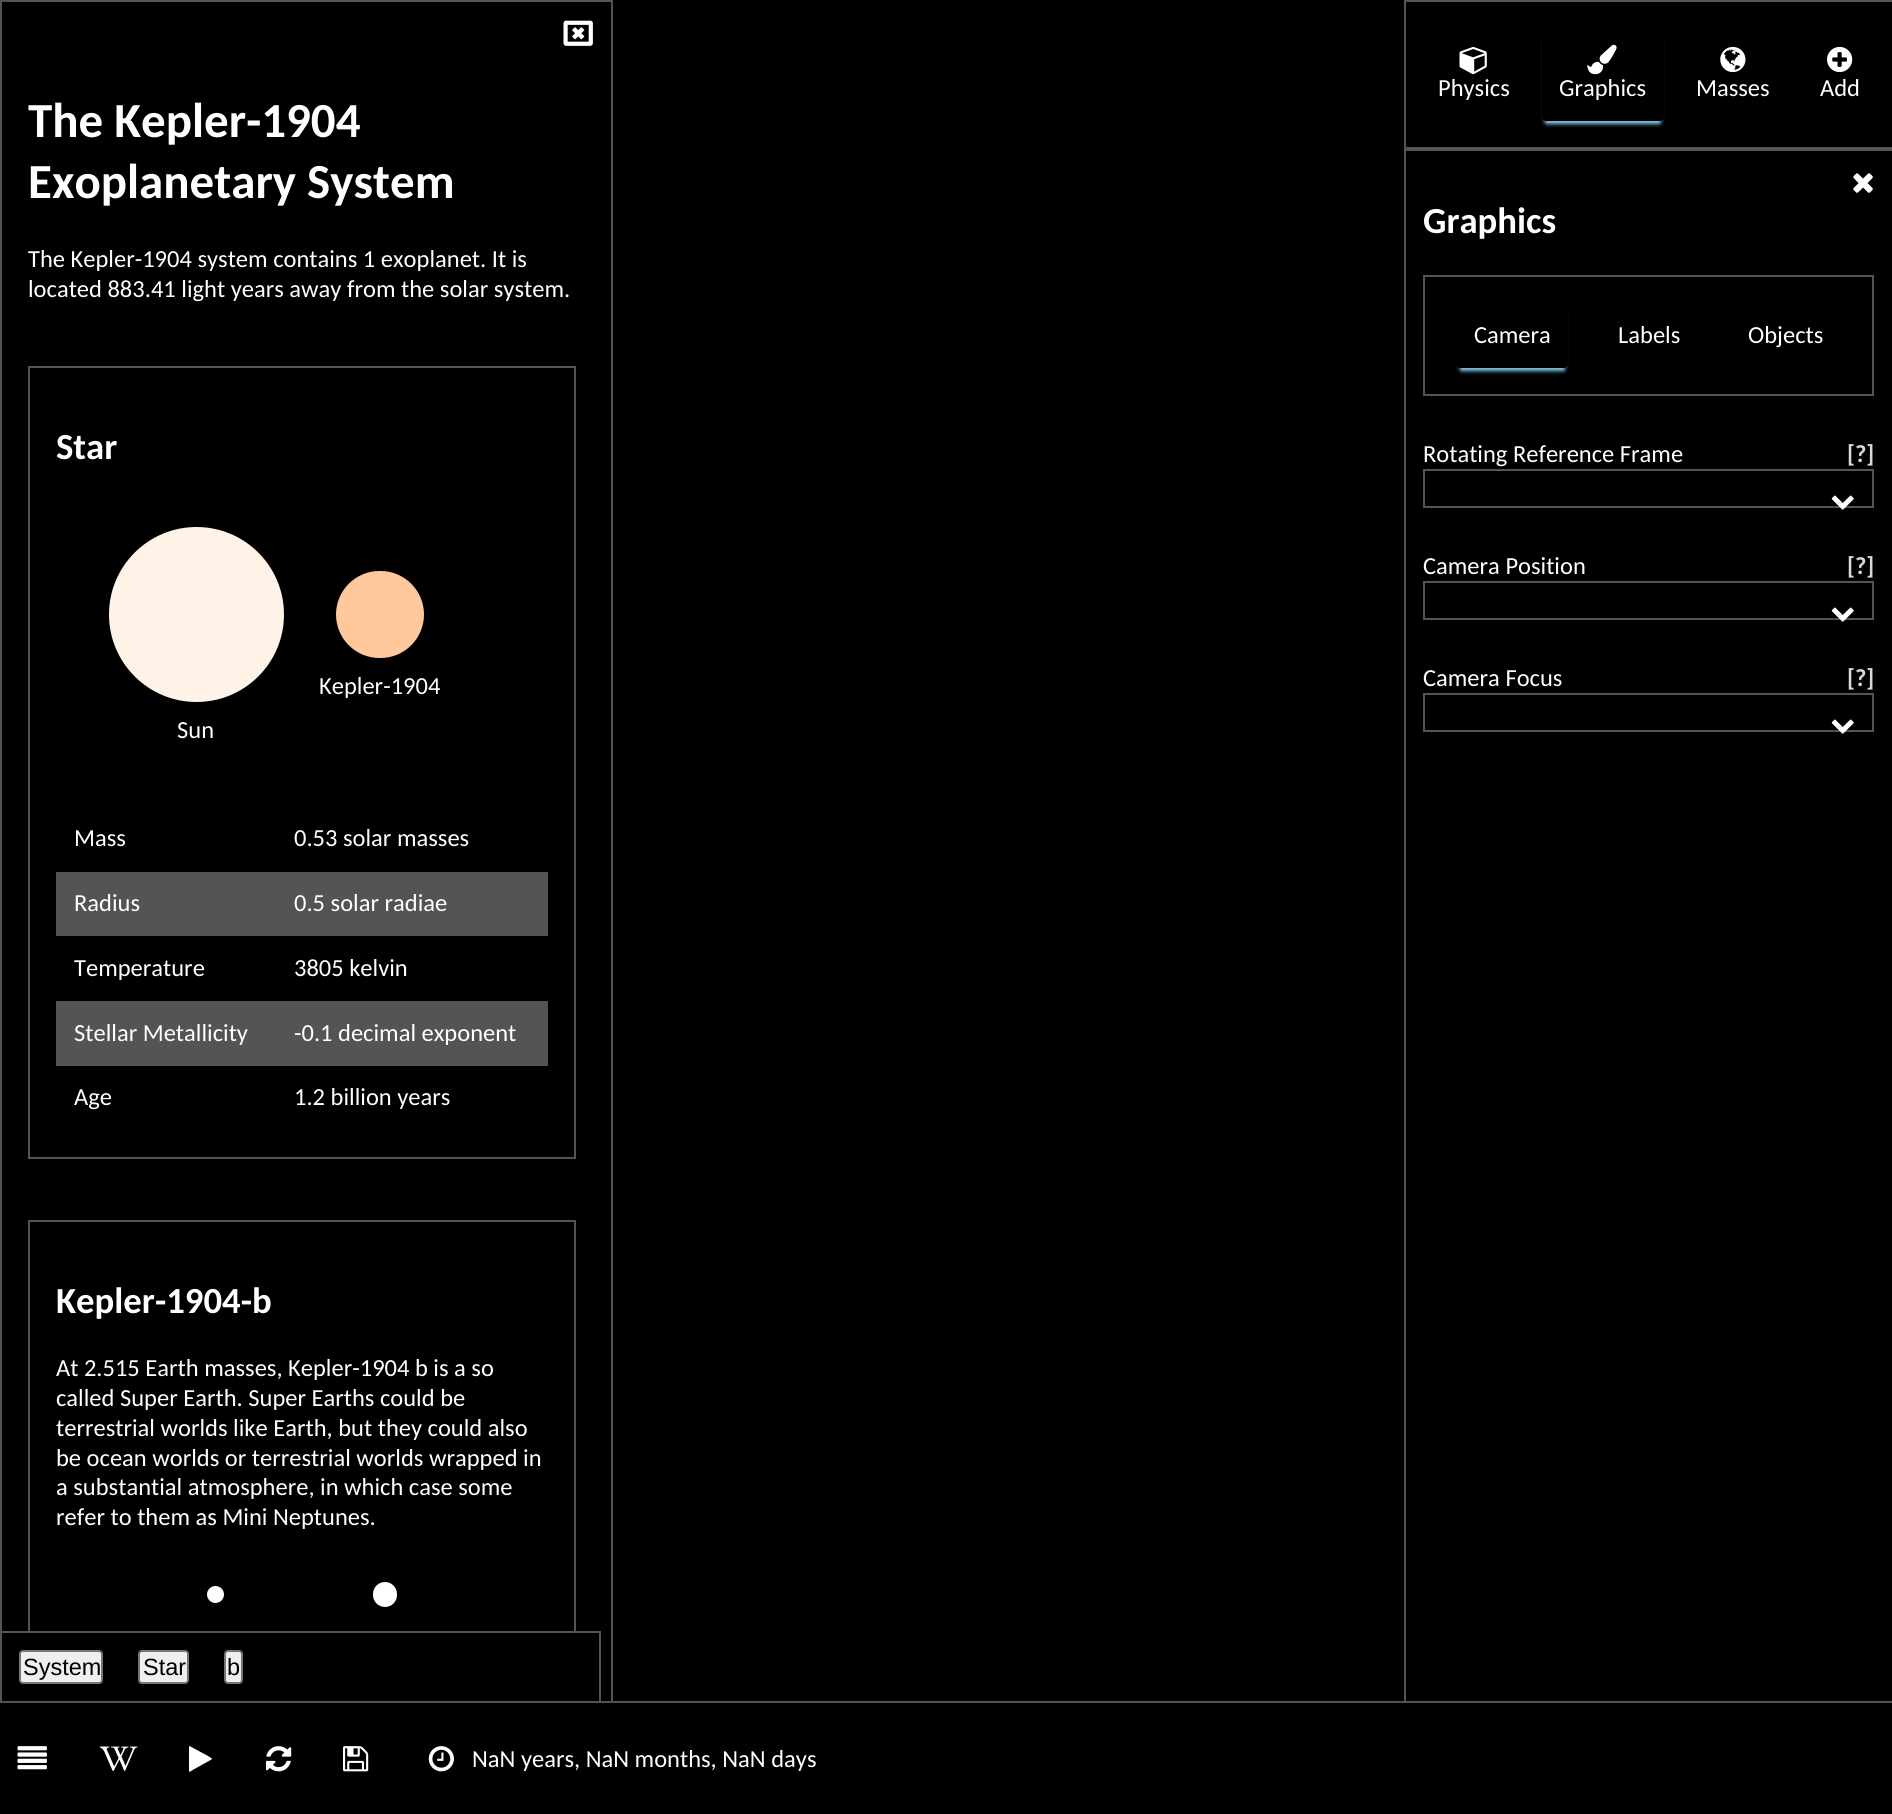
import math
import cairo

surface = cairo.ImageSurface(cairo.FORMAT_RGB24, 1892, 1814)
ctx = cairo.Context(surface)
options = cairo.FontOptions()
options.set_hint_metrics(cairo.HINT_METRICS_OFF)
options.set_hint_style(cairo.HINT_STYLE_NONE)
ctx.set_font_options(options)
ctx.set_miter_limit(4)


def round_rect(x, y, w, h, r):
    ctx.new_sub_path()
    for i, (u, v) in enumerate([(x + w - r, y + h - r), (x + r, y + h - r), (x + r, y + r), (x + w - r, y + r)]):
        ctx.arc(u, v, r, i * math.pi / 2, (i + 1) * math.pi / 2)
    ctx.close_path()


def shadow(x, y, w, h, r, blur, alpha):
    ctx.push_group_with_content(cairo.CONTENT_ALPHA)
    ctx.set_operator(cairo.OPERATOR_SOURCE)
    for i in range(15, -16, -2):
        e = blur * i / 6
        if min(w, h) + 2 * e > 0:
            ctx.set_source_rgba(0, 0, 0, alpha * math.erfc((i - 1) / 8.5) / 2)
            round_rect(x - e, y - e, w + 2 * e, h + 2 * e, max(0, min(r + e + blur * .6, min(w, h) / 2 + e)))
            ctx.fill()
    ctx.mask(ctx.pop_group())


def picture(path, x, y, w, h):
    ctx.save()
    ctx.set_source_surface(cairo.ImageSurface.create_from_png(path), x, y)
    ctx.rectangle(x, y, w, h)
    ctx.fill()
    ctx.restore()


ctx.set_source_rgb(0, 0, 0)
ctx.paint()
ctx.save()
ctx.rectangle(0, 0, 613, 1701)
ctx.clip()
ctx.rectangle(1, 1, 611, 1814)
ctx.set_source_rgb(0.329, 0.329, 0.329)
ctx.stroke()
ctx.restore()
picture("img1.png", 563, 20, 30, 26)
ctx.select_font_face("Carlito", cairo.FONT_SLANT_NORMAL, cairo.FONT_WEIGHT_BOLD)
ctx.set_font_size(49)
ctx.set_source_rgb(1, 1, 1)
ctx.move_to(28, 137)
ctx.show_text("The Kepler-1904")
ctx.move_to(28, 198)
ctx.show_text("Exoplanetary System")
ctx.select_font_face("Carlito")
ctx.set_font_size(24.5)
ctx.move_to(28, 267)
ctx.show_text("The Kepler-1904 system contains 1 exoplanet. It is")
ctx.move_to(28, 297)
ctx.show_text("located 883.41 light years away from the solar system.")
ctx.rectangle(29, 367, 546, 791)
ctx.set_source_rgb(0.329, 0.329, 0.329)
ctx.stroke()
ctx.select_font_face("Carlito", cairo.FONT_SLANT_NORMAL, cairo.FONT_WEIGHT_BOLD)
ctx.set_font_size(36.75)
ctx.set_source_rgb(1, 1, 1)
ctx.move_to(56, 459)
ctx.show_text("Star")
ctx.set_source_rgb(1, 0.788, 0.616)
round_rect(336, 571, 88, 87, 43.5)
ctx.fill()
ctx.select_font_face("Carlito")
ctx.set_font_size(24.5)
ctx.set_source_rgb(1, 1, 1)
ctx.move_to(319, 694)
ctx.show_text("Kepler-1904")
ctx.set_source_rgb(1, 0.949, 0.906)
ctx.new_path()
ctx.arc(196.5, 614.5, 87.5, 0, 2 * math.pi)
ctx.fill()
ctx.set_source_rgb(1, 1, 1)
ctx.move_to(177, 738)
ctx.show_text("Sun")
ctx.move_to(74, 846)
ctx.show_text("Mass")
ctx.move_to(294, 846)
ctx.show_text("0.53 solar masses")
ctx.set_source_rgb(0.329, 0.329, 0.329)
ctx.rectangle(56, 872, 492, 64)
ctx.fill()
ctx.set_source_rgb(1, 1, 1)
ctx.move_to(74, 911)
ctx.show_text("Radius")
ctx.move_to(294, 911)
ctx.show_text("0.5 solar radiae")
ctx.move_to(74, 976)
ctx.show_text("Temperature")
ctx.move_to(294, 976)
ctx.show_text("3805 kelvin")
ctx.set_source_rgb(0.329, 0.329, 0.329)
ctx.rectangle(56, 1001, 492, 65)
ctx.fill()
ctx.set_source_rgb(1, 1, 1)
ctx.move_to(74, 1041)
ctx.show_text("Stellar Metallicity")
ctx.move_to(294, 1041)
ctx.show_text("-0.1 decimal exponent")
ctx.move_to(74, 1105)
ctx.show_text("Age")
ctx.move_to(294, 1105)
ctx.show_text("1.2 billion years")
ctx.save()
ctx.rectangle(2, 2, 609, 1699)
ctx.clip()
ctx.rectangle(29, 1221, 546, 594)
ctx.set_source_rgb(0.329, 0.329, 0.329)
ctx.stroke()
ctx.restore()
ctx.select_font_face("Carlito", cairo.FONT_SLANT_NORMAL, cairo.FONT_WEIGHT_BOLD)
ctx.set_font_size(36.75)
ctx.move_to(56, 1313)
ctx.show_text("Kepler-1904-b")
ctx.select_font_face("Carlito")
ctx.set_font_size(24.5)
ctx.move_to(56, 1376)
ctx.show_text("At 2.515 Earth masses, Kepler-1904 b is a so")
ctx.move_to(56, 1406)
ctx.show_text("called Super Earth. Super Earths could be")
ctx.move_to(56, 1436)
ctx.show_text("terrestrial worlds like Earth, but they could also")
ctx.move_to(56, 1466)
ctx.show_text("be ocean worlds or terrestrial worlds wrapped in")
ctx.move_to(56, 1495)
ctx.show_text("a substantial atmosphere, in which case some")
ctx.move_to(56, 1525)
ctx.show_text("refer to them as Mini Neptunes.")
ctx.new_path()
ctx.arc(215.5, 1594.5, 8.5, 0, 2 * math.pi)
ctx.fill()
round_rect(373, 1582, 24, 25, 12)
ctx.fill()
ctx.set_source_rgb(0, 0, 0)
ctx.rectangle(28, 1633, 548, 68)
ctx.fill()
ctx.set_source_rgb(0.329, 0.329, 0.329)
ctx.rectangle(0, 1631, 600, 2)
ctx.fill()
ctx.rectangle(599, 1631, 2, 70)
ctx.fill()
ctx.set_source_rgb(0.937, 0.937, 0.937)
round_rect(20, 1651, 82, 32, 3)
ctx.fill_preserve()
ctx.set_source_rgb(0.463, 0.463, 0.463)
ctx.stroke()
ctx.select_font_face("Liberation Sans")
ctx.set_font_size(23.5)
ctx.set_source_rgb(0, 0, 0)
ctx.move_to(23, 1675)
ctx.show_text("System")
ctx.set_source_rgb(0.937, 0.937, 0.937)
round_rect(139, 1651, 49, 32, 3)
ctx.fill_preserve()
ctx.set_source_rgb(0.463, 0.463, 0.463)
ctx.stroke()
ctx.set_source_rgb(0, 0, 0)
ctx.move_to(143, 1675)
ctx.show_text("Star")
ctx.set_source_rgb(0.937, 0.937, 0.937)
round_rect(225, 1651, 17, 32, 3)
ctx.fill_preserve()
ctx.set_source_rgb(0.463, 0.463, 0.463)
ctx.stroke()
ctx.set_source_rgb(0, 0, 0)
ctx.move_to(227, 1675)
ctx.show_text("b")
ctx.rectangle(1405, 1, 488, 147)
ctx.set_source_rgb(0.329, 0.329, 0.329)
ctx.stroke()
picture("img2.png", 1459, 46, 28, 29)
ctx.select_font_face("Carlito")
ctx.set_font_size(24.5)
ctx.set_source_rgb(1, 1, 1)
ctx.move_to(1438, 96)
ctx.show_text("Physics")
ctx.save()
ctx.set_fill_rule(cairo.FILL_RULE_EVEN_ODD)
ctx.new_path()
ctx.move_to(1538, 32)
ctx.line_to(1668, 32)
ctx.line_to(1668, 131)
ctx.line_to(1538, 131)
ctx.close_path()
ctx.move_to(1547, 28)
ctx.line_to(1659, 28)
ctx.curve_to(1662, 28, 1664, 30, 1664, 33)
ctx.line_to(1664, 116)
ctx.curve_to(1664, 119, 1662, 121, 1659, 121)
ctx.line_to(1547, 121)
ctx.curve_to(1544, 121, 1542, 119, 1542, 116)
ctx.line_to(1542, 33)
ctx.curve_to(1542, 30, 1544, 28, 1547, 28)
ctx.close_path()
ctx.clip()
ctx.set_source_rgb(0.529, 0.808, 0.922)
shadow(1545, 39, 116, 85, 2, 2, 1)
ctx.restore()
picture("img3.png", 1587, 44, 30, 31)
ctx.move_to(1559, 96)
ctx.show_text("Graphics")
picture("img4.png", 1720, 46, 26, 27)
ctx.move_to(1696, 96)
ctx.show_text("Masses")
picture("img5.png", 1827, 46, 26, 27)
ctx.move_to(1820, 96)
ctx.show_text("Add")
ctx.set_source_rgb(0.329, 0.329, 0.329)
ctx.rectangle(1404, 149, 488, 2)
ctx.fill()
ctx.rectangle(1404, 149, 2, 1552)
ctx.fill()
picture("img6.png", 1853, 173, 20, 20)
ctx.select_font_face("Carlito", cairo.FONT_SLANT_NORMAL, cairo.FONT_WEIGHT_BOLD)
ctx.set_font_size(36.75)
ctx.set_source_rgb(1, 1, 1)
ctx.move_to(1423, 233)
ctx.show_text("Graphics")
ctx.rectangle(1424, 276, 449, 119)
ctx.set_source_rgb(0.329, 0.329, 0.329)
ctx.stroke()
ctx.save()
ctx.set_fill_rule(cairo.FILL_RULE_EVEN_ODD)
ctx.new_path()
ctx.move_to(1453, 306)
ctx.line_to(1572, 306)
ctx.line_to(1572, 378)
ctx.line_to(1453, 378)
ctx.close_path()
ctx.move_to(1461, 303)
ctx.line_to(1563, 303)
ctx.curve_to(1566, 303, 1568, 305, 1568, 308)
ctx.line_to(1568, 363)
ctx.curve_to(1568, 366, 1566, 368, 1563, 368)
ctx.line_to(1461, 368)
ctx.curve_to(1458, 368, 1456, 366, 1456, 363)
ctx.line_to(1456, 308)
ctx.curve_to(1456, 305, 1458, 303, 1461, 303)
ctx.close_path()
ctx.clip()
ctx.set_source_rgb(0.529, 0.808, 0.922)
shadow(1460, 313, 105, 58, 2, 2, 1)
ctx.restore()
ctx.select_font_face("Carlito")
ctx.set_font_size(24.5)
ctx.set_source_rgb(1, 1, 1)
ctx.move_to(1474, 343)
ctx.show_text("Camera")
ctx.move_to(1618, 343)
ctx.show_text("Labels")
ctx.move_to(1748, 343)
ctx.show_text("Objects")
ctx.move_to(1423, 462)
ctx.show_text("Rotating Reference Frame")
ctx.select_font_face("Carlito", cairo.FONT_SLANT_NORMAL, cairo.FONT_WEIGHT_BOLD)
ctx.set_source_rgb(0.847, 0.847, 0.847)
ctx.move_to(1847, 462)
ctx.show_text("[?]")
ctx.rectangle(1424, 470, 449, 37)
ctx.set_source_rgb(0.329, 0.329, 0.329)
ctx.stroke()
picture("img7.png", 1831, 495, 23, 15)
ctx.select_font_face("Carlito")
ctx.set_source_rgb(1, 1, 1)
ctx.move_to(1423, 574)
ctx.show_text("Camera Position")
ctx.select_font_face("Carlito", cairo.FONT_SLANT_NORMAL, cairo.FONT_WEIGHT_BOLD)
ctx.set_source_rgb(0.847, 0.847, 0.847)
ctx.move_to(1847, 574)
ctx.show_text("[?]")
ctx.rectangle(1424, 582, 449, 37)
ctx.set_source_rgb(0.329, 0.329, 0.329)
ctx.stroke()
picture("img7.png", 1831, 607, 23, 15)
ctx.select_font_face("Carlito")
ctx.set_source_rgb(1, 1, 1)
ctx.move_to(1423, 686)
ctx.show_text("Camera Focus")
ctx.select_font_face("Carlito", cairo.FONT_SLANT_NORMAL, cairo.FONT_WEIGHT_BOLD)
ctx.set_source_rgb(0.847, 0.847, 0.847)
ctx.move_to(1847, 686)
ctx.show_text("[?]")
ctx.rectangle(1424, 694, 449, 37)
ctx.set_source_rgb(0.329, 0.329, 0.329)
ctx.stroke()
picture("img7.png", 1831, 719, 23, 15)
ctx.rectangle(0, 1701, 1892, 2)
ctx.fill()
picture("img8.png", 17, 1746, 30, 24)
picture("img9.png", 99, 1746, 39, 25)
ctx.set_source_rgb(1, 1, 1)
ctx.new_path()
ctx.move_to(211.5, 1759.5)
ctx.line_to(193.5, 1769.5)
ctx.curve_to(193, 1769.5, 190, 1772.5, 189, 1771.5)
ctx.line_to(189, 1746.5)
ctx.line_to(189.5, 1746)
ctx.line_to(208, 1756)
ctx.line_to(212, 1758.5)
ctx.close_path()
ctx.fill()
picture("img10.png", 266, 1746, 26, 26)
picture("img11.png", 343, 1746, 26, 26)
picture("img12.png", 428, 1746, 26, 26)
ctx.select_font_face("Carlito")
ctx.move_to(472, 1767)
ctx.show_text("NaN years, NaN months, NaN days")
surface.write_to_png("page.png")
